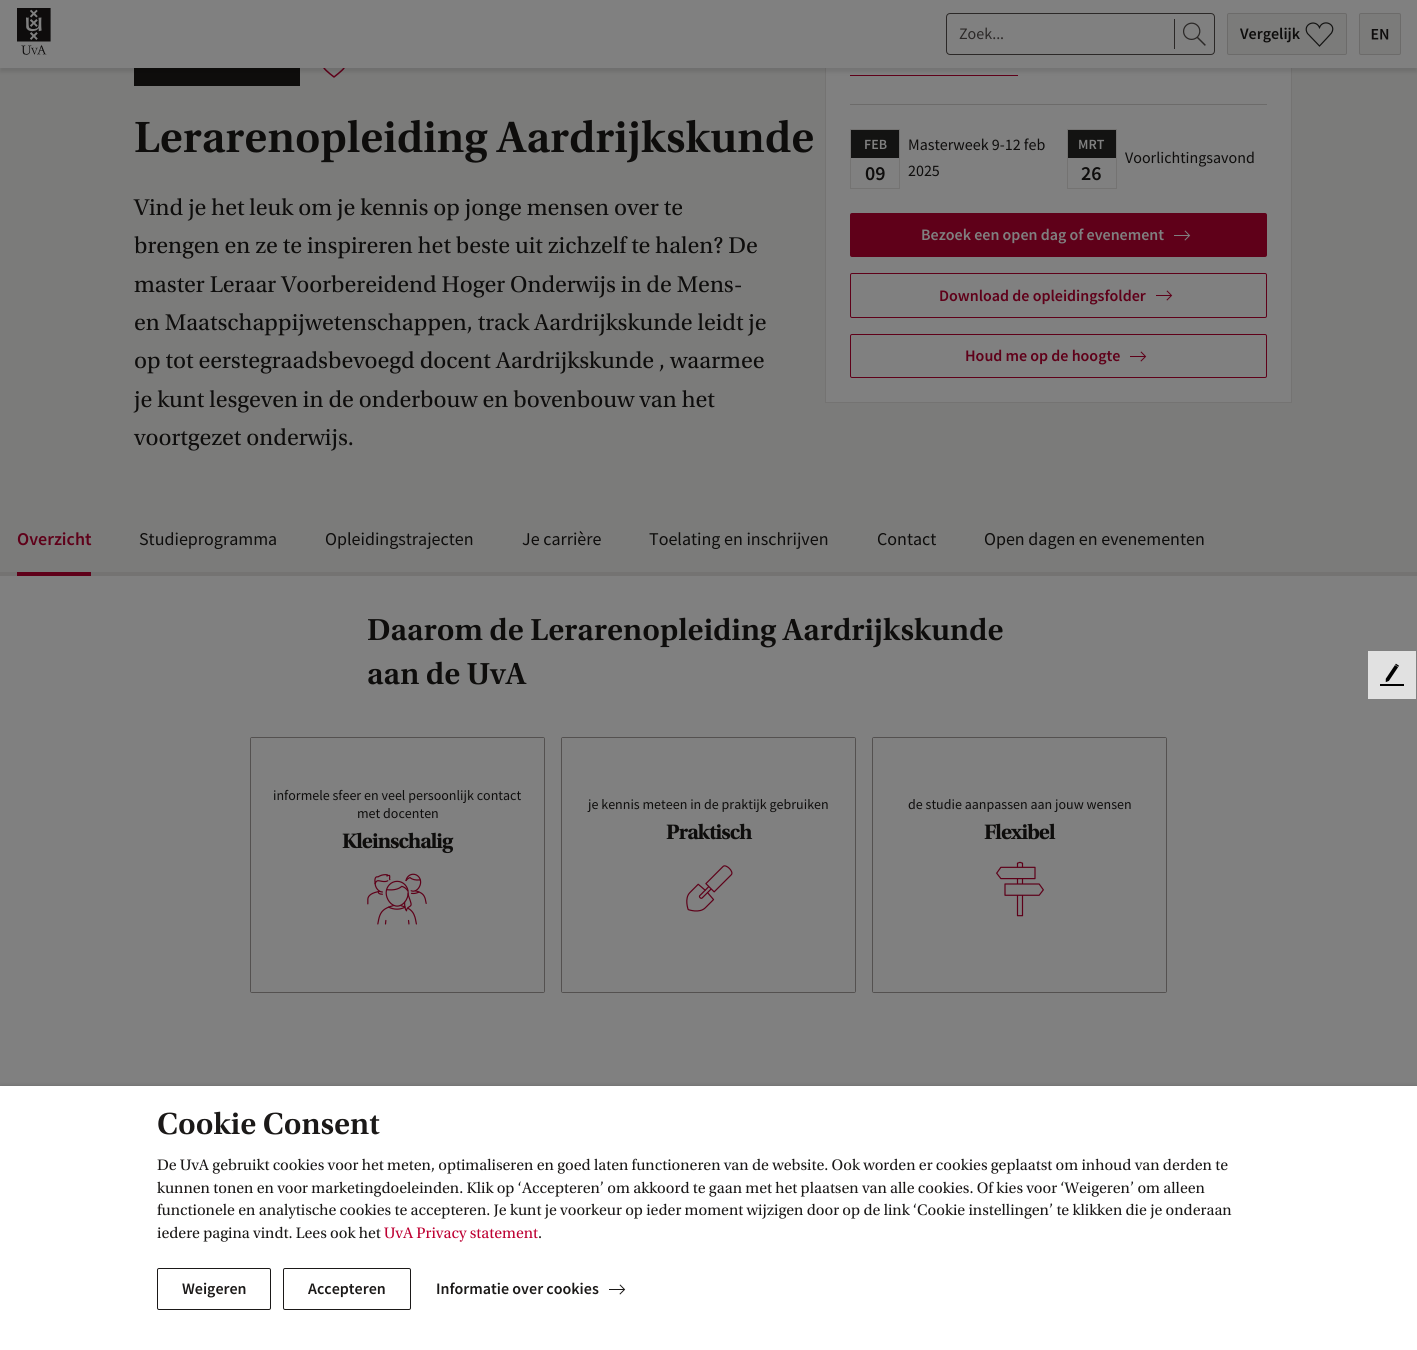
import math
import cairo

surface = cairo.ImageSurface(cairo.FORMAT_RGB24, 1417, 1350)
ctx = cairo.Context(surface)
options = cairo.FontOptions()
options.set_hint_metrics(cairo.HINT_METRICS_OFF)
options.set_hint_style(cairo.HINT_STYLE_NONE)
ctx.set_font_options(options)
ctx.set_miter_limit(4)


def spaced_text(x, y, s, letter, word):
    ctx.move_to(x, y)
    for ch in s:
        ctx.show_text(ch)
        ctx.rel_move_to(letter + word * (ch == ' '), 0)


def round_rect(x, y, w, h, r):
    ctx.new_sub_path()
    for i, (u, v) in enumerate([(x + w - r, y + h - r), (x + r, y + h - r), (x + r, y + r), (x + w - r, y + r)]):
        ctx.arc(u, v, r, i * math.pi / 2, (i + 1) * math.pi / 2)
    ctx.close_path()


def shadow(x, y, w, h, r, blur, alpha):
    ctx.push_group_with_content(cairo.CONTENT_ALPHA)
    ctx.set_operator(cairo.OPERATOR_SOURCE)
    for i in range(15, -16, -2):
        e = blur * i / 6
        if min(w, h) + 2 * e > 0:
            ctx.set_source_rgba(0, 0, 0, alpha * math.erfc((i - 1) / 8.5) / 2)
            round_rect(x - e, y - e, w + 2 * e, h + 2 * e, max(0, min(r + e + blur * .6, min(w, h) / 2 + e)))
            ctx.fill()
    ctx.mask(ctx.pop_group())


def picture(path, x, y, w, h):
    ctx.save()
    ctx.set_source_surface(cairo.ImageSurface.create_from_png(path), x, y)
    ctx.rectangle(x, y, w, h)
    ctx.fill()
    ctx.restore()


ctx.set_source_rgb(0.482, 0.482, 0.478)
ctx.paint()
ctx.set_source_rgb(0.055, 0.051, 0.047)
ctx.rectangle(134, 68, 166, 18)
ctx.fill()
ctx.new_path()
ctx.move_to(344, 68)
ctx.curve_to(342.5, 70.5, 334, 77, 334, 77)
ctx.curve_to(334, 77, 326, 71, 324, 68)
ctx.curve_to(320.5, 62.5, 327, 55, 334, 62.5)
ctx.curve_to(341, 55, 347.5, 62.5, 344, 68)
ctx.close_path()
ctx.set_source_rgb(0.373, 0, 0.098)
ctx.set_line_width(1.5)
ctx.set_line_cap(cairo.LINE_CAP_ROUND)
ctx.set_line_join(cairo.LINE_JOIN_ROUND)
ctx.stroke()
ctx.set_source_rgb(0.502, 0.502, 0.502)
ctx.rectangle(826, 68, 465, 334)
ctx.fill()
ctx.rectangle(825.5, -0.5, 466, 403)
ctx.set_source_rgb(0.455, 0.451, 0.447)
ctx.set_line_width(1)
ctx.set_line_cap(cairo.LINE_CAP_BUTT)
ctx.set_line_join(cairo.LINE_JOIN_MITER)
ctx.stroke()
ctx.set_source_rgb(0.373, 0, 0.098)
ctx.rectangle(850, 75, 168, 1)
ctx.fill()
ctx.set_source_rgb(0, 0, 0)
shadow(0, 4, 1417, 68, 0, 2, 0.1)
ctx.set_source_rgb(0.502, 0.502, 0.502)
ctx.rectangle(0, 0, 1417, 68)
ctx.fill()
picture("img1.png", 17, 8, 34, 47)
round_rect(946.5, 13.5, 268, 41, 3.5)
ctx.set_source_rgb(0.169, 0.157, 0.153)
ctx.stroke()
ctx.select_font_face("Source Sans Pro")
ctx.set_font_size(16)
ctx.move_to(959, 39)
ctx.show_text("Zoek...")
picture("img2.png", 1183, 22, 23, 24)
ctx.rectangle(1174, 19, 1, 30)
ctx.fill()
ctx.set_source_rgb(0.482, 0.482, 0.478)
round_rect(1227.5, 13.5, 119, 41, 1.5)
ctx.fill_preserve()
ctx.set_source_rgb(0.424, 0.42, 0.416)
ctx.stroke()
ctx.select_font_face("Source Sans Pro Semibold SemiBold")
ctx.set_source_rgb(0.055, 0.051, 0.047)
ctx.move_to(1240, 39)
ctx.show_text("Vergelijk")
ctx.new_path()
ctx.move_to(1319.5, 46)
ctx.line_to(1327, 38)
ctx.line_to(1331.5, 33)
ctx.curve_to(1337, 24, 1323, 18.5, 1319.5, 27.5)
ctx.curve_to(1315.5, 18.5, 1302, 24.5, 1307.5, 33.5)
ctx.close_path()
ctx.set_source_rgb(0.078, 0.075, 0.071)
ctx.set_line_width(1.2)
ctx.stroke()
ctx.set_source_rgb(0.482, 0.482, 0.478)
round_rect(1359.5, 13.5, 41, 41, 1.5)
ctx.fill_preserve()
ctx.set_source_rgb(0.424, 0.42, 0.416)
ctx.set_line_width(1)
ctx.stroke()
picture("img3.png", 1371, 29, 18, 11)
ctx.select_font_face("Utopia SemiBold")
ctx.set_font_size(46)
ctx.set_source_rgb(0.055, 0.051, 0.047)
ctx.move_to(134, 152)
ctx.show_text("Lerarenopleiding Aardrijkskunde")
ctx.select_font_face("Utopia")
ctx.set_font_size(24)
ctx.move_to(134, 215)
ctx.show_text("Vind je het leuk om je kennis op jonge mensen over te")
ctx.move_to(134, 253)
ctx.show_text("brengen en ze te inspireren het beste uit zichzelf te halen? De")
ctx.move_to(134, 292)
ctx.show_text("master Leraar Voorbereidend Hoger Onderwijs in de Mens-")
ctx.move_to(134, 330)
ctx.show_text("en Maatschappijwetenschappen, track Aardrijkskunde leidt je")
ctx.move_to(134, 368)
ctx.show_text("op tot eerstegraadsbevoegd docent Aardrijkskunde , waarmee")
ctx.move_to(134, 407)
ctx.show_text("je kunt lesgeven in de onderbouw en bovenbouw van het")
ctx.move_to(134, 445)
ctx.show_text("voortgezet onderwijs.")
ctx.set_source_rgb(0.424, 0.42, 0.416)
ctx.rectangle(850, 104, 417, 1)
ctx.fill()
ctx.rectangle(850.5, 129.5, 49, 59)
ctx.set_source_rgb(0.455, 0.451, 0.447)
ctx.stroke()
ctx.set_source_rgb(0.078, 0.075, 0.071)
ctx.rectangle(851, 130, 48, 28)
ctx.fill()
ctx.select_font_face("Source Sans Pro Semibold SemiBold")
ctx.set_font_size(14)
ctx.set_source_rgb(0.502, 0.502, 0.502)
ctx.move_to(864, 149)
ctx.show_text("FEB")
ctx.set_font_size(20)
ctx.set_source_rgb(0.055, 0.051, 0.047)
ctx.move_to(865, 180)
ctx.show_text("09")
ctx.select_font_face("Source Sans Pro")
ctx.set_font_size(16)
ctx.move_to(908, 150)
ctx.show_text("Masterweek 9-12 feb")
ctx.move_to(908, 176)
ctx.show_text("2025")
ctx.rectangle(1067.5, 129.5, 49, 59)
ctx.set_source_rgb(0.455, 0.451, 0.447)
ctx.stroke()
ctx.set_source_rgb(0.078, 0.075, 0.071)
ctx.rectangle(1068, 130, 48, 28)
ctx.fill()
ctx.select_font_face("Source Sans Pro Semibold SemiBold")
ctx.set_font_size(14)
ctx.set_source_rgb(0.502, 0.502, 0.502)
ctx.move_to(1078, 149)
ctx.show_text("MRT")
ctx.set_font_size(20)
ctx.set_source_rgb(0.055, 0.051, 0.047)
ctx.move_to(1081, 180)
ctx.show_text("26")
ctx.select_font_face("Source Sans Pro")
ctx.set_font_size(16)
ctx.move_to(1125, 163)
ctx.show_text("Voorlichtingsavond")
ctx.set_source_rgb(0.373, 0, 0.098)
round_rect(850, 213, 417, 44, 2)
ctx.fill()
ctx.select_font_face("Source Sans Pro Semibold SemiBold")
ctx.set_source_rgb(0.502, 0.502, 0.502)
ctx.move_to(921, 240)
ctx.show_text("Bezoek een open dag of evenement")
picture("img4.png", 1174, 230, 17, 11)
round_rect(850.5, 273.5, 416, 44, 1.5)
ctx.set_source_rgb(0.373, 0, 0.098)
ctx.stroke()
ctx.move_to(939, 301)
ctx.show_text("Download de opleidingsfolder")
picture("img5.png", 1156, 290, 17, 11)
round_rect(850.5, 334.5, 416, 43, 1.5)
ctx.stroke()
ctx.move_to(965, 361)
ctx.show_text("Houd me op de hoogte")
picture("img5.png", 1130, 351, 17, 11)
ctx.set_source_rgb(0.455, 0.451, 0.447)
ctx.rectangle(0, 572, 1417, 4)
ctx.fill()
ctx.set_source_rgb(0.373, 0, 0.098)
ctx.rectangle(17, 572, 74, 4)
ctx.fill()
ctx.set_font_size(18)
ctx.move_to(17, 545)
ctx.show_text("Overzicht")
ctx.select_font_face("Source Sans Pro")
ctx.set_source_rgb(0.055, 0.051, 0.047)
ctx.move_to(139, 545)
ctx.show_text("Studieprogramma")
ctx.move_to(325, 545)
ctx.show_text("Opleidingstrajecten")
ctx.move_to(522, 545)
ctx.show_text("Je carrière")
ctx.move_to(649, 545)
ctx.show_text("Toelating en inschrijven")
ctx.move_to(877, 545)
ctx.show_text("Contact")
ctx.move_to(984, 545)
ctx.show_text("Open dagen en evenementen")
ctx.set_source_rgb(0.502, 0.502, 0.502)
ctx.rectangle(0, 576, 1417, 510)
ctx.fill()
ctx.select_font_face("Utopia SemiBold")
ctx.set_font_size(32)
ctx.set_source_rgb(0.055, 0.051, 0.047)
ctx.move_to(367, 640)
ctx.show_text("Daarom de Lerarenopleiding Aardrijkskunde")
ctx.move_to(367, 684)
ctx.show_text("aan de UvA")
round_rect(250.5, 737.5, 294, 255, 1.5)
ctx.set_source_rgb(0.329, 0.318, 0.314)
ctx.stroke()
ctx.set_source_rgb(0.502, 0.502, 0.502)
ctx.rectangle(251, 738, 293, 254)
ctx.fill()
ctx.select_font_face("Source Sans Pro")
ctx.set_font_size(14)
ctx.set_source_rgb(0.055, 0.051, 0.047)
ctx.move_to(273, 800)
ctx.show_text("informele sfeer en veel persoonlijk contact")
ctx.move_to(357, 818)
ctx.show_text("met docenten")
ctx.select_font_face("Utopia", cairo.FONT_SLANT_NORMAL, cairo.FONT_WEIGHT_BOLD)
ctx.set_font_size(22)
spaced_text(342, 848, "Kleinschalig", -1, 0)
picture("img6.png", 367, 873, 60, 52)
round_rect(561.5, 737.5, 294, 255, 1.5)
ctx.set_source_rgb(0.329, 0.318, 0.314)
ctx.stroke()
ctx.set_source_rgb(0.502, 0.502, 0.502)
ctx.rectangle(562, 738, 293, 254)
ctx.fill()
ctx.select_font_face("Source Sans Pro")
ctx.set_font_size(14)
ctx.set_source_rgb(0.055, 0.051, 0.047)
ctx.move_to(588, 809)
ctx.show_text("je kennis meteen in de praktijk gebruiken")
ctx.select_font_face("Utopia", cairo.FONT_SLANT_NORMAL, cairo.FONT_WEIGHT_BOLD)
ctx.set_font_size(22)
spaced_text(666, 839, "Praktisch", -1, 0)
picture("img7.png", 686, 865, 47, 47)
round_rect(872.5, 737.5, 294, 255, 1.5)
ctx.set_source_rgb(0.329, 0.318, 0.314)
ctx.stroke()
ctx.set_source_rgb(0.502, 0.502, 0.502)
ctx.rectangle(873, 738, 293, 254)
ctx.fill()
ctx.select_font_face("Source Sans Pro")
ctx.set_font_size(14)
ctx.set_source_rgb(0.055, 0.051, 0.047)
ctx.move_to(908, 809)
ctx.show_text("de studie aanpassen aan jouw wensen")
ctx.select_font_face("Utopia", cairo.FONT_SLANT_NORMAL, cairo.FONT_WEIGHT_BOLD)
ctx.set_font_size(22)
spaced_text(984, 839, "Flexibel", -1, 0)
picture("img8.png", 996, 861, 48, 56)
ctx.set_source_rgb(0.882, 0.882, 0.882)
ctx.rectangle(1368, 651, 48, 48)
ctx.fill()
picture("img9.png", 1380, 663, 24, 23)
ctx.set_source_rgb(0, 0, 0)
shadow(0, 1089, 1417, 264, 0, 3, 0.2)
shadow(0, 1087, 1417, 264, 0, 3, 0.15)
ctx.set_source_rgb(1, 1, 1)
ctx.rectangle(0, 1086, 1417, 264)
ctx.fill()
ctx.select_font_face("Utopia SemiBold")
ctx.set_font_size(32)
ctx.set_source_rgb(0.106, 0.098, 0.094)
ctx.move_to(157, 1134)
ctx.show_text("Cookie Consent")
ctx.select_font_face("Utopia")
ctx.set_font_size(16)
ctx.move_to(157, 1170)
ctx.show_text("De UvA gebruikt cookies voor het meten, optimaliseren en goed laten functioneren van de website. Ook worden er cookies geplaatst om inhoud van derden te")
ctx.move_to(157, 1193)
ctx.show_text("kunnen tonen en voor marketingdoeleinden. Klik op ‘Accepteren’ om akkoord te gaan met het plaatsen van alle cookies. Of kies voor ‘Weigeren’ om alleen")
ctx.move_to(157, 1215)
ctx.show_text("functionele en analytische cookies te accepteren. Je kunt je voorkeur op ieder moment wijzigen door op de link ‘Cookie instellingen’ te klikken die je onderaan")
ctx.move_to(157, 1238)
ctx.show_text("iedere pagina vindt. Lees ook het")
ctx.set_source_rgb(0.741, 0, 0.196)
ctx.move_to(384, 1238)
ctx.show_text("UvA Privacy statement")
ctx.set_source_rgb(0.106, 0.098, 0.094)
ctx.move_to(538, 1238)
ctx.show_text(".")
round_rect(157.5, 1268.5, 113, 41, 1.5)
ctx.stroke()
ctx.select_font_face("Source Sans Pro Semibold SemiBold")
ctx.move_to(182, 1294)
ctx.show_text("Weigeren")
round_rect(283.5, 1268.5, 127, 41, 1.5)
ctx.stroke()
ctx.move_to(308, 1294)
ctx.show_text("Accepteren")
ctx.move_to(436, 1294)
ctx.show_text("Informatie over cookies")
picture("img10.png", 609, 1284, 17, 11)
surface.write_to_png("page.png")
